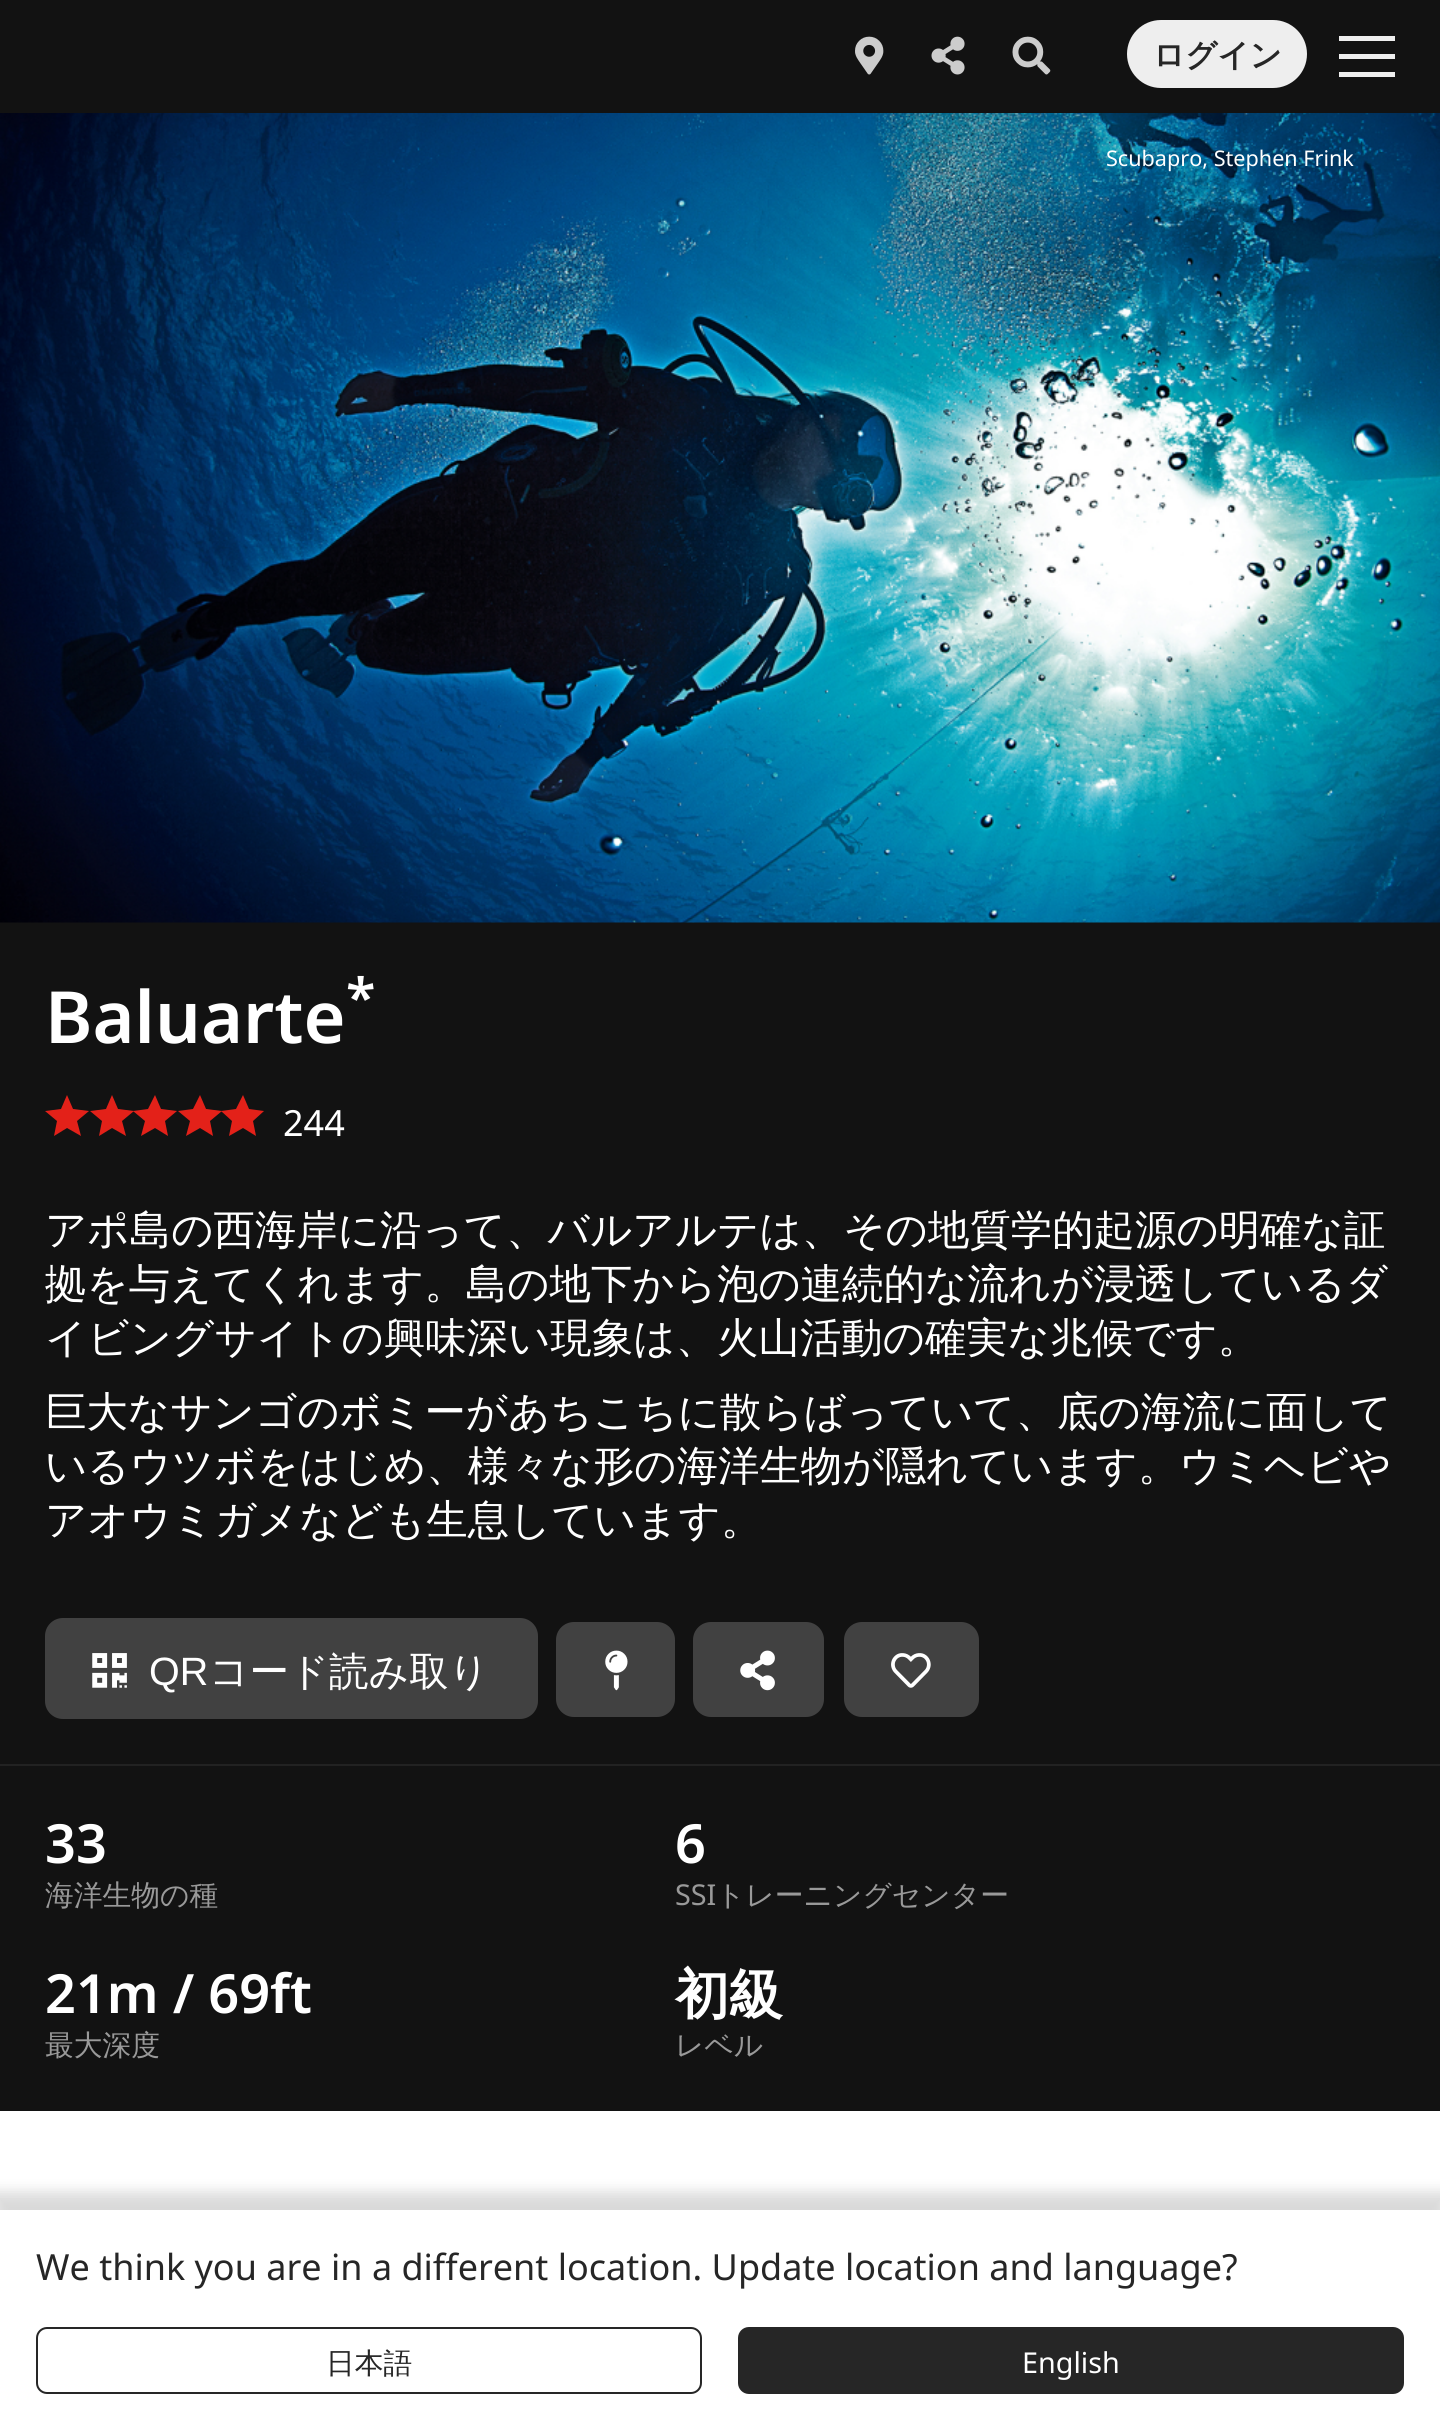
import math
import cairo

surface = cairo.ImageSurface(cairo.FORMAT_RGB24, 1440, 2429)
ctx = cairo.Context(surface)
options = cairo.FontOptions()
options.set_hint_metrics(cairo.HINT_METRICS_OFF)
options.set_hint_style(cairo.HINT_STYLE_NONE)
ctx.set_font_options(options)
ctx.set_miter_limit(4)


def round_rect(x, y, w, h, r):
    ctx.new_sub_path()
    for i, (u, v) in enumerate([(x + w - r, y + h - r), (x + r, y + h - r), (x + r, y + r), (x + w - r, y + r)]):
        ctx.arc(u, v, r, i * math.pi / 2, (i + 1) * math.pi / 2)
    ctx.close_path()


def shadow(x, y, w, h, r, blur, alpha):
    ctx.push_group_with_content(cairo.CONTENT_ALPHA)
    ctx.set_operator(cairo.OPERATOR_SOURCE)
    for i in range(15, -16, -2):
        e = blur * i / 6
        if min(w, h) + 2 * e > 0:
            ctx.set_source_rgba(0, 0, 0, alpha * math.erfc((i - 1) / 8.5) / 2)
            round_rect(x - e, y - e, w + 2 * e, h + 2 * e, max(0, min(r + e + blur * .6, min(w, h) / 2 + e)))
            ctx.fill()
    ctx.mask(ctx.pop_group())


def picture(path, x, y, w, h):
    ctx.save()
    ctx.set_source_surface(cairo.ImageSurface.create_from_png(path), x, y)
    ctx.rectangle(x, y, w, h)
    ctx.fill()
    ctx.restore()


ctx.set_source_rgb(1, 1, 1)
ctx.paint()
ctx.set_source_rgb(0.071, 0.071, 0.071)
ctx.rectangle(0, 0, 1440, 113)
ctx.fill()
picture("img1.png", 855, 36, 29, 39)
picture("img2.png", 931, 36, 34, 39)
picture("img3.png", 1012, 36, 39, 39)
ctx.set_source_rgb(0.933, 0.933, 0.933)
round_rect(1127, 20, 180, 68, 34)
ctx.fill()
ctx.select_font_face("WenQuanYi Zen Hei", cairo.FONT_SLANT_NORMAL, cairo.FONT_WEIGHT_BOLD)
ctx.set_font_size(31.5)
ctx.set_source_rgb(0.149, 0.149, 0.149)
ctx.move_to(1153, 66)
ctx.show_text("ログイン")
ctx.set_source_rgb(0.933, 0.933, 0.933)
ctx.rectangle(1339, 54, 56, 5)
ctx.fill()
ctx.rectangle(1339, 36, 56, 5)
ctx.fill()
ctx.rectangle(1339, 72, 56, 5)
ctx.fill()
ctx.set_source_rgb(0.071, 0.071, 0.071)
ctx.rectangle(0, 922, 1440, 1189)
ctx.fill()
picture("img4.png", 0, 113, 1440, 810)
ctx.select_font_face("Noto Sans")
ctx.set_font_size(21.6)
ctx.set_source_rgb(1, 1, 1)
ctx.move_to(1106, 166)
ctx.show_text("Scubapro, Stephen Frink")
ctx.select_font_face("Noto Sans SemiBold")
ctx.set_font_size(72)
ctx.move_to(45, 1043)
ctx.show_text("Baluarte")
ctx.set_font_size(54)
ctx.move_to(346, 1017)
ctx.show_text("*")
ctx.set_source_rgb(0.89, 0.129, 0.098)
ctx.new_path()
ctx.move_to(89, 1111)
ctx.line_to(73, 1109)
ctx.line_to(67, 1095)
ctx.line_to(61, 1109)
ctx.line_to(45, 1111)
ctx.line_to(57, 1121)
ctx.line_to(54, 1136)
ctx.line_to(67, 1128)
ctx.line_to(81, 1136)
ctx.line_to(77, 1121)
ctx.close_path()
ctx.fill()
ctx.new_path()
ctx.move_to(134, 1111)
ctx.line_to(118, 1109)
ctx.line_to(112, 1095)
ctx.line_to(106, 1109)
ctx.line_to(90, 1111)
ctx.line_to(102, 1121)
ctx.line_to(99, 1136)
ctx.line_to(112, 1128)
ctx.line_to(126, 1136)
ctx.line_to(122, 1121)
ctx.close_path()
ctx.fill()
ctx.new_path()
ctx.move_to(177, 1111)
ctx.line_to(161, 1109)
ctx.line_to(155, 1095)
ctx.line_to(148, 1109)
ctx.line_to(133, 1111)
ctx.line_to(145, 1121)
ctx.line_to(141, 1136)
ctx.line_to(155, 1128)
ctx.line_to(168, 1136)
ctx.line_to(165, 1121)
ctx.close_path()
ctx.fill()
ctx.new_path()
ctx.move_to(222, 1111)
ctx.line_to(206, 1109)
ctx.line_to(200, 1095)
ctx.line_to(193, 1109)
ctx.line_to(178, 1111)
ctx.line_to(190, 1121)
ctx.line_to(186, 1136)
ctx.line_to(200, 1128)
ctx.line_to(213, 1136)
ctx.line_to(210, 1121)
ctx.close_path()
ctx.fill()
ctx.new_path()
ctx.move_to(264, 1111)
ctx.line_to(249, 1109)
ctx.line_to(243, 1095)
ctx.line_to(236, 1109)
ctx.line_to(221, 1111)
ctx.line_to(232, 1121)
ctx.line_to(229, 1136)
ctx.line_to(243, 1128)
ctx.line_to(256, 1136)
ctx.line_to(253, 1121)
ctx.close_path()
ctx.fill()
ctx.select_font_face("Noto Sans")
ctx.set_font_size(36)
ctx.set_source_rgb(1, 1, 1)
ctx.move_to(283, 1136)
ctx.show_text("244")
ctx.select_font_face("WenQuanYi Zen Hei Medium")
ctx.set_font_size(41.4)
ctx.move_to(45, 1244)
ctx.show_text("アポ島の西海岸に沿って、バルアルテは、その地質学的起源の明確な証")
ctx.move_to(45, 1298)
ctx.show_text("拠を与えてくれます。島の地下から泡の連続的な流れが浸透しているダ")
ctx.move_to(45, 1352)
ctx.show_text("イビングサイトの興味深い現象は、火山活動の確実な兆候です。")
ctx.move_to(45, 1426)
ctx.show_text("巨大なサンゴのボミーがあちこちに散らばっていて、底の海流に面して")
ctx.move_to(45, 1480)
ctx.show_text("いるウツボをはじめ、様々な形の海洋生物が隠れています。ウミヘビや")
ctx.move_to(45, 1534)
ctx.show_text("アオウミガメなども生息しています。")
ctx.set_source_rgb(0.255, 0.255, 0.255)
round_rect(45, 1618, 493, 101, 18)
ctx.fill()
picture("img5.png", 92, 1653, 35, 35)
ctx.select_font_face("Liberation Sans")
ctx.set_font_size(39.5)
ctx.set_source_rgb(1, 1, 1)
ctx.move_to(149, 1685)
ctx.show_text("QR")
ctx.select_font_face("WenQuanYi Zen Hei Medium")
ctx.move_to(209, 1685)
ctx.show_text("コード読み取り")
ctx.set_source_rgb(0.255, 0.255, 0.255)
round_rect(556, 1622, 119, 95, 18)
ctx.fill()
picture("img6.png", 605, 1650, 23, 41)
round_rect(693, 1622, 131, 95, 18)
ctx.fill()
picture("img7.png", 740, 1650, 35, 41)
round_rect(844, 1622, 135, 95, 18)
ctx.fill()
picture("img8.png", 891, 1653, 40, 35)
ctx.set_source_rgb(0.133, 0.133, 0.133)
ctx.rectangle(0, 1764, 1440, 2)
ctx.fill()
ctx.select_font_face("Noto Sans SemiBold")
ctx.set_font_size(54)
ctx.set_source_rgb(1, 1, 1)
ctx.move_to(45, 1863)
ctx.show_text("33")
ctx.select_font_face("WenQuanYi Zen Hei Medium")
ctx.set_font_size(28.75)
ctx.set_source_rgb(0.6, 0.6, 0.6)
ctx.move_to(45, 1905)
ctx.show_text("海洋生物の種")
ctx.select_font_face("Noto Sans SemiBold")
ctx.set_font_size(54)
ctx.set_source_rgb(1, 1, 1)
ctx.move_to(675, 1863)
ctx.show_text("6")
ctx.select_font_face("Noto Sans")
ctx.set_font_size(28.75)
ctx.set_source_rgb(0.6, 0.6, 0.6)
ctx.move_to(675, 1905)
ctx.show_text("SSI")
ctx.select_font_face("WenQuanYi Zen Hei Medium")
ctx.move_to(716, 1905)
ctx.show_text("トレーニングセンター")
ctx.select_font_face("Noto Sans SemiBold")
ctx.set_font_size(54)
ctx.set_source_rgb(1, 1, 1)
ctx.move_to(45, 2013)
ctx.show_text("21m / 69ft")
ctx.select_font_face("WenQuanYi Zen Hei Medium")
ctx.set_font_size(28.75)
ctx.set_source_rgb(0.6, 0.6, 0.6)
ctx.move_to(45, 2055)
ctx.show_text("最大深度")
ctx.select_font_face("WenQuanYi Zen Hei", cairo.FONT_SLANT_NORMAL, cairo.FONT_WEIGHT_BOLD)
ctx.set_font_size(54)
ctx.set_source_rgb(1, 1, 1)
ctx.move_to(675, 2013)
ctx.show_text("初級")
ctx.select_font_face("WenQuanYi Zen Hei Medium")
ctx.set_font_size(28.75)
ctx.set_source_rgb(0.6, 0.6, 0.6)
ctx.move_to(675, 2055)
ctx.show_text("レベル")
ctx.set_source_rgb(0, 0, 0)
shadow(-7, 2192, 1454, 234, 0, 7, 0.15)
ctx.set_source_rgb(1, 1, 1)
ctx.rectangle(0, 2210, 1440, 219)
ctx.fill()
ctx.select_font_face("Noto Sans")
ctx.set_font_size(36)
ctx.set_source_rgb(0.149, 0.149, 0.149)
ctx.move_to(36, 2280)
ctx.show_text("We think you are in a different location. Update location and language?")
round_rect(37, 2328, 664, 65, 10)
ctx.stroke()
ctx.select_font_face("WenQuanYi Zen Hei Medium")
ctx.set_font_size(28.75)
ctx.move_to(326, 2373)
ctx.show_text("日本語")
round_rect(739, 2328, 664, 65, 10)
ctx.fill_preserve()
ctx.stroke()
ctx.select_font_face("Noto Sans")
ctx.set_source_rgb(1, 1, 1)
ctx.move_to(1022, 2373)
ctx.show_text("English")
surface.write_to_png("page.png")
